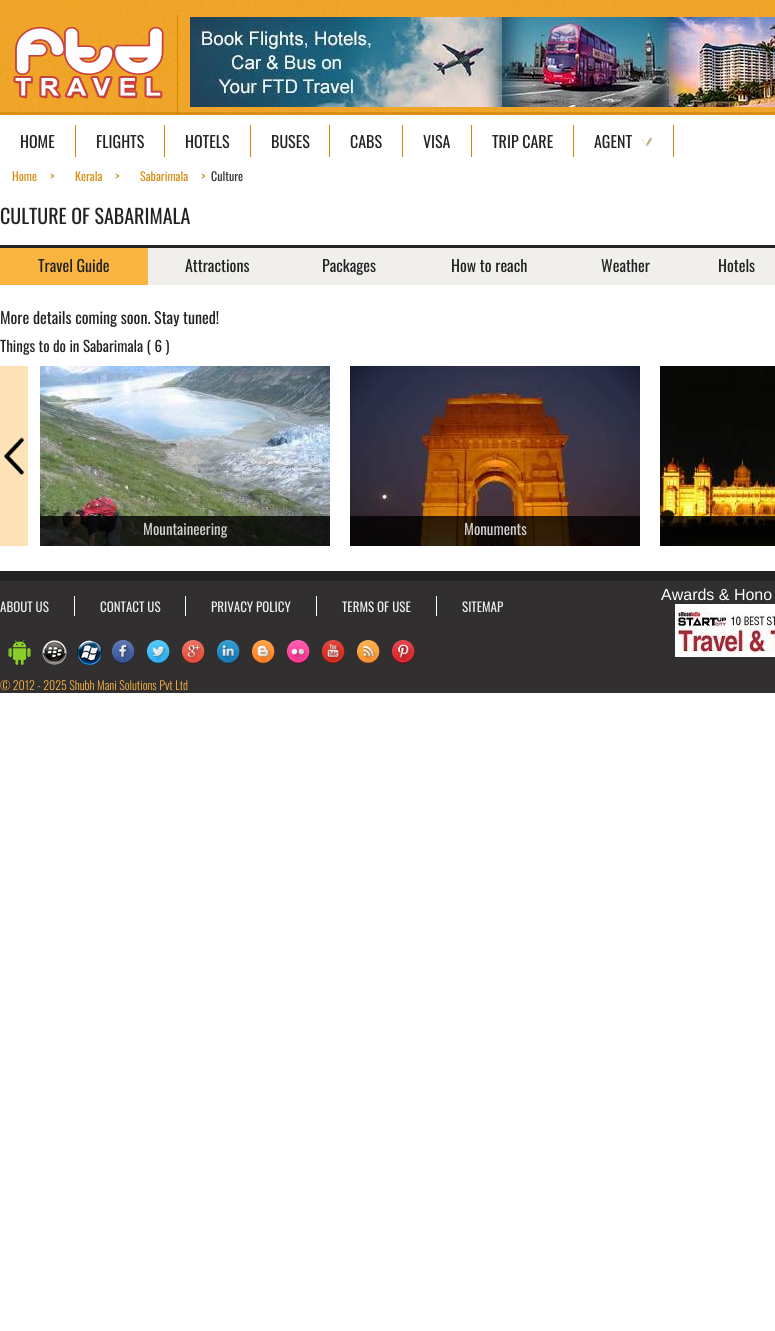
import math
import cairo

surface = cairo.ImageSurface(cairo.FORMAT_RGB24, 775, 1331)
ctx = cairo.Context(surface)
options = cairo.FontOptions()
options.set_hint_metrics(cairo.HINT_METRICS_OFF)
options.set_hint_style(cairo.HINT_STYLE_NONE)
ctx.set_font_options(options)
ctx.set_miter_limit(4)


def picture(path, x, y, w, h):
    ctx.save()
    ctx.set_source_surface(cairo.ImageSurface.create_from_png(path), x, y)
    ctx.rectangle(x, y, w, h)
    ctx.fill()
    ctx.restore()


ctx.set_source_rgb(1, 1, 1)
ctx.paint()
picture("img1.png", 0, 0, 775, 115)
ctx.set_source_rgb(0.827, 0.525, 0.027)
ctx.rectangle(177, 15, 1, 100)
ctx.fill()
picture("img2.png", 13, 26, 151, 73)
picture("img3.png", 190, 17, 585, 90)
ctx.rectangle(75, 125, 1, 32)
ctx.fill()
ctx.select_font_face("Oswald")
ctx.set_font_size(16)
ctx.set_source_rgb(0.133, 0.133, 0.133)
ctx.move_to(20, 148)
ctx.show_text("HOME")
ctx.set_source_rgb(0.827, 0.525, 0.027)
ctx.rectangle(164, 125, 1, 32)
ctx.fill()
ctx.set_source_rgb(0.133, 0.133, 0.133)
ctx.move_to(96, 148)
ctx.show_text("FLIGHTS")
ctx.set_source_rgb(0.827, 0.525, 0.027)
ctx.rectangle(250, 125, 1, 32)
ctx.fill()
ctx.set_source_rgb(0.133, 0.133, 0.133)
ctx.move_to(185, 148)
ctx.show_text("HOTELS")
ctx.set_source_rgb(0.827, 0.525, 0.027)
ctx.rectangle(329, 125, 1, 32)
ctx.fill()
ctx.set_source_rgb(0.133, 0.133, 0.133)
ctx.move_to(271, 148)
ctx.show_text("BUSES")
ctx.set_source_rgb(0.827, 0.525, 0.027)
ctx.rectangle(402, 125, 1, 32)
ctx.fill()
ctx.set_source_rgb(0.133, 0.133, 0.133)
ctx.move_to(350, 148)
ctx.show_text("CABS")
ctx.set_source_rgb(0.827, 0.525, 0.027)
ctx.rectangle(471, 125, 1, 32)
ctx.fill()
ctx.set_source_rgb(0.133, 0.133, 0.133)
ctx.move_to(423, 148)
ctx.show_text("VISA")
ctx.set_source_rgb(0.827, 0.525, 0.027)
ctx.rectangle(573, 125, 1, 32)
ctx.fill()
ctx.set_source_rgb(0.133, 0.133, 0.133)
ctx.move_to(492, 148)
ctx.show_text("TRIP CARE")
ctx.set_source_rgb(0.827, 0.525, 0.027)
ctx.rectangle(673, 125, 1, 32)
ctx.fill()
picture("img4.png", 641, 137, 12, 10)
ctx.set_source_rgb(0.133, 0.133, 0.133)
ctx.move_to(594, 148)
ctx.show_text("AGENT")
ctx.set_font_size(12)
ctx.set_source_rgb(0.831, 0.549, 0.078)
ctx.move_to(12, 181)
ctx.show_text("Home")
ctx.move_to(50, 181)
ctx.show_text(">")
ctx.move_to(75, 181)
ctx.show_text("Kerala")
ctx.move_to(115, 181)
ctx.show_text(">")
ctx.move_to(140, 181)
ctx.show_text("Sabarimala")
ctx.move_to(201, 181)
ctx.show_text(">")
ctx.set_source_rgb(0.2, 0.2, 0.2)
ctx.move_to(211, 181)
ctx.show_text("Culture")
ctx.set_font_size(20)
ctx.set_source_rgb(0.133, 0.133, 0.133)
ctx.move_to(0, 224)
ctx.show_text("CULTURE OF SABARIMALA")
ctx.set_source_rgb(0.98, 0.706, 0.255)
ctx.rectangle(0, 248, 148, 37)
ctx.fill()
ctx.set_source_rgb(0.133, 0.133, 0.133)
ctx.rectangle(0, 245, 775, 3)
ctx.fill()
ctx.set_font_size(16)
ctx.move_to(38, 272)
ctx.show_text("Travel Guide")
ctx.set_source_rgb(0.941, 0.937, 0.925)
ctx.rectangle(148, 248, 627, 37)
ctx.fill()
ctx.set_source_rgb(0.133, 0.133, 0.133)
ctx.move_to(185, 272)
ctx.show_text("Attractions")
ctx.move_to(322, 272)
ctx.show_text("Packages")
ctx.move_to(451, 272)
ctx.show_text("How to reach")
ctx.move_to(601, 272)
ctx.show_text("Weather")
ctx.move_to(718, 272)
ctx.show_text("Hotels")
ctx.move_to(0, 324)
ctx.show_text("More details coming soon. Stay tuned!")
ctx.set_font_size(15)
ctx.move_to(0, 352)
ctx.show_text("Things to do in Sabarimala ( 6 )")
ctx.set_source_rgb(1, 0.89, 0.722)
ctx.rectangle(0, 366, 28, 180)
ctx.fill()
picture("img5.png", 4, 437, 20, 38)
picture("img6.png", 40, 366, 290, 180)
ctx.set_source_rgba(0, 0, 0, 0.8)
ctx.rectangle(40, 516, 290, 30)
ctx.fill()
ctx.set_source_rgb(0.82, 0.82, 0.816)
ctx.move_to(143, 535)
ctx.show_text("Mountaineering")
picture("img7.png", 350, 366, 290, 180)
ctx.set_source_rgba(0, 0, 0, 0.8)
ctx.rectangle(350, 516, 290, 30)
ctx.fill()
ctx.set_source_rgb(0.82, 0.82, 0.816)
ctx.move_to(464, 535)
ctx.show_text("Monuments")
picture("img8.png", 660, 366, 115, 180)
ctx.set_source_rgba(0, 0, 0, 0.8)
ctx.rectangle(660, 516, 115, 30)
ctx.fill()
ctx.set_source_rgb(0.192, 0.184, 0.188)
ctx.rectangle(0, 581, 775, 112)
ctx.fill()
ctx.set_source_rgb(0.133, 0.133, 0.133)
ctx.rectangle(0, 571, 775, 10)
ctx.fill()
ctx.select_font_face("Liberation Sans")
ctx.set_font_size(16)
ctx.set_source_rgb(1, 1, 1)
ctx.move_to(661, 600)
ctx.show_text("Awards & Hono")
picture("img9.png", 8, 640, 407, 25)
picture("img10.png", 675, 604, 100, 53)
ctx.select_font_face("Oswald Light")
ctx.set_font_size(12)
ctx.set_source_rgb(0.98, 0.706, 0.255)
ctx.move_to(0, 690)
ctx.show_text("© 2012 - 2025 Shubh Mani Solutions Pvt Ltd")
ctx.set_source_rgb(1, 1, 1)
ctx.rectangle(74, 596, 1, 20)
ctx.fill()
ctx.select_font_face("Oswald")
ctx.set_font_size(13)
ctx.set_source_rgb(0.933, 0.933, 0.933)
ctx.move_to(0, 612)
ctx.show_text("ABOUT US")
ctx.set_source_rgb(1, 1, 1)
ctx.rectangle(185, 596, 1, 20)
ctx.fill()
ctx.set_source_rgb(0.933, 0.933, 0.933)
ctx.move_to(100, 612)
ctx.show_text("CONTACT US")
ctx.set_source_rgb(1, 1, 1)
ctx.rectangle(316, 596, 1, 20)
ctx.fill()
ctx.set_source_rgb(0.933, 0.933, 0.933)
ctx.move_to(211, 612)
ctx.show_text("PRIVACY POLICY")
ctx.set_source_rgb(1, 1, 1)
ctx.rectangle(436, 596, 1, 20)
ctx.fill()
ctx.set_source_rgb(0.933, 0.933, 0.933)
ctx.move_to(342, 612)
ctx.show_text("TERMS OF USE")
ctx.move_to(462, 612)
ctx.show_text("SITEMAP")
surface.write_to_png("page.png")
